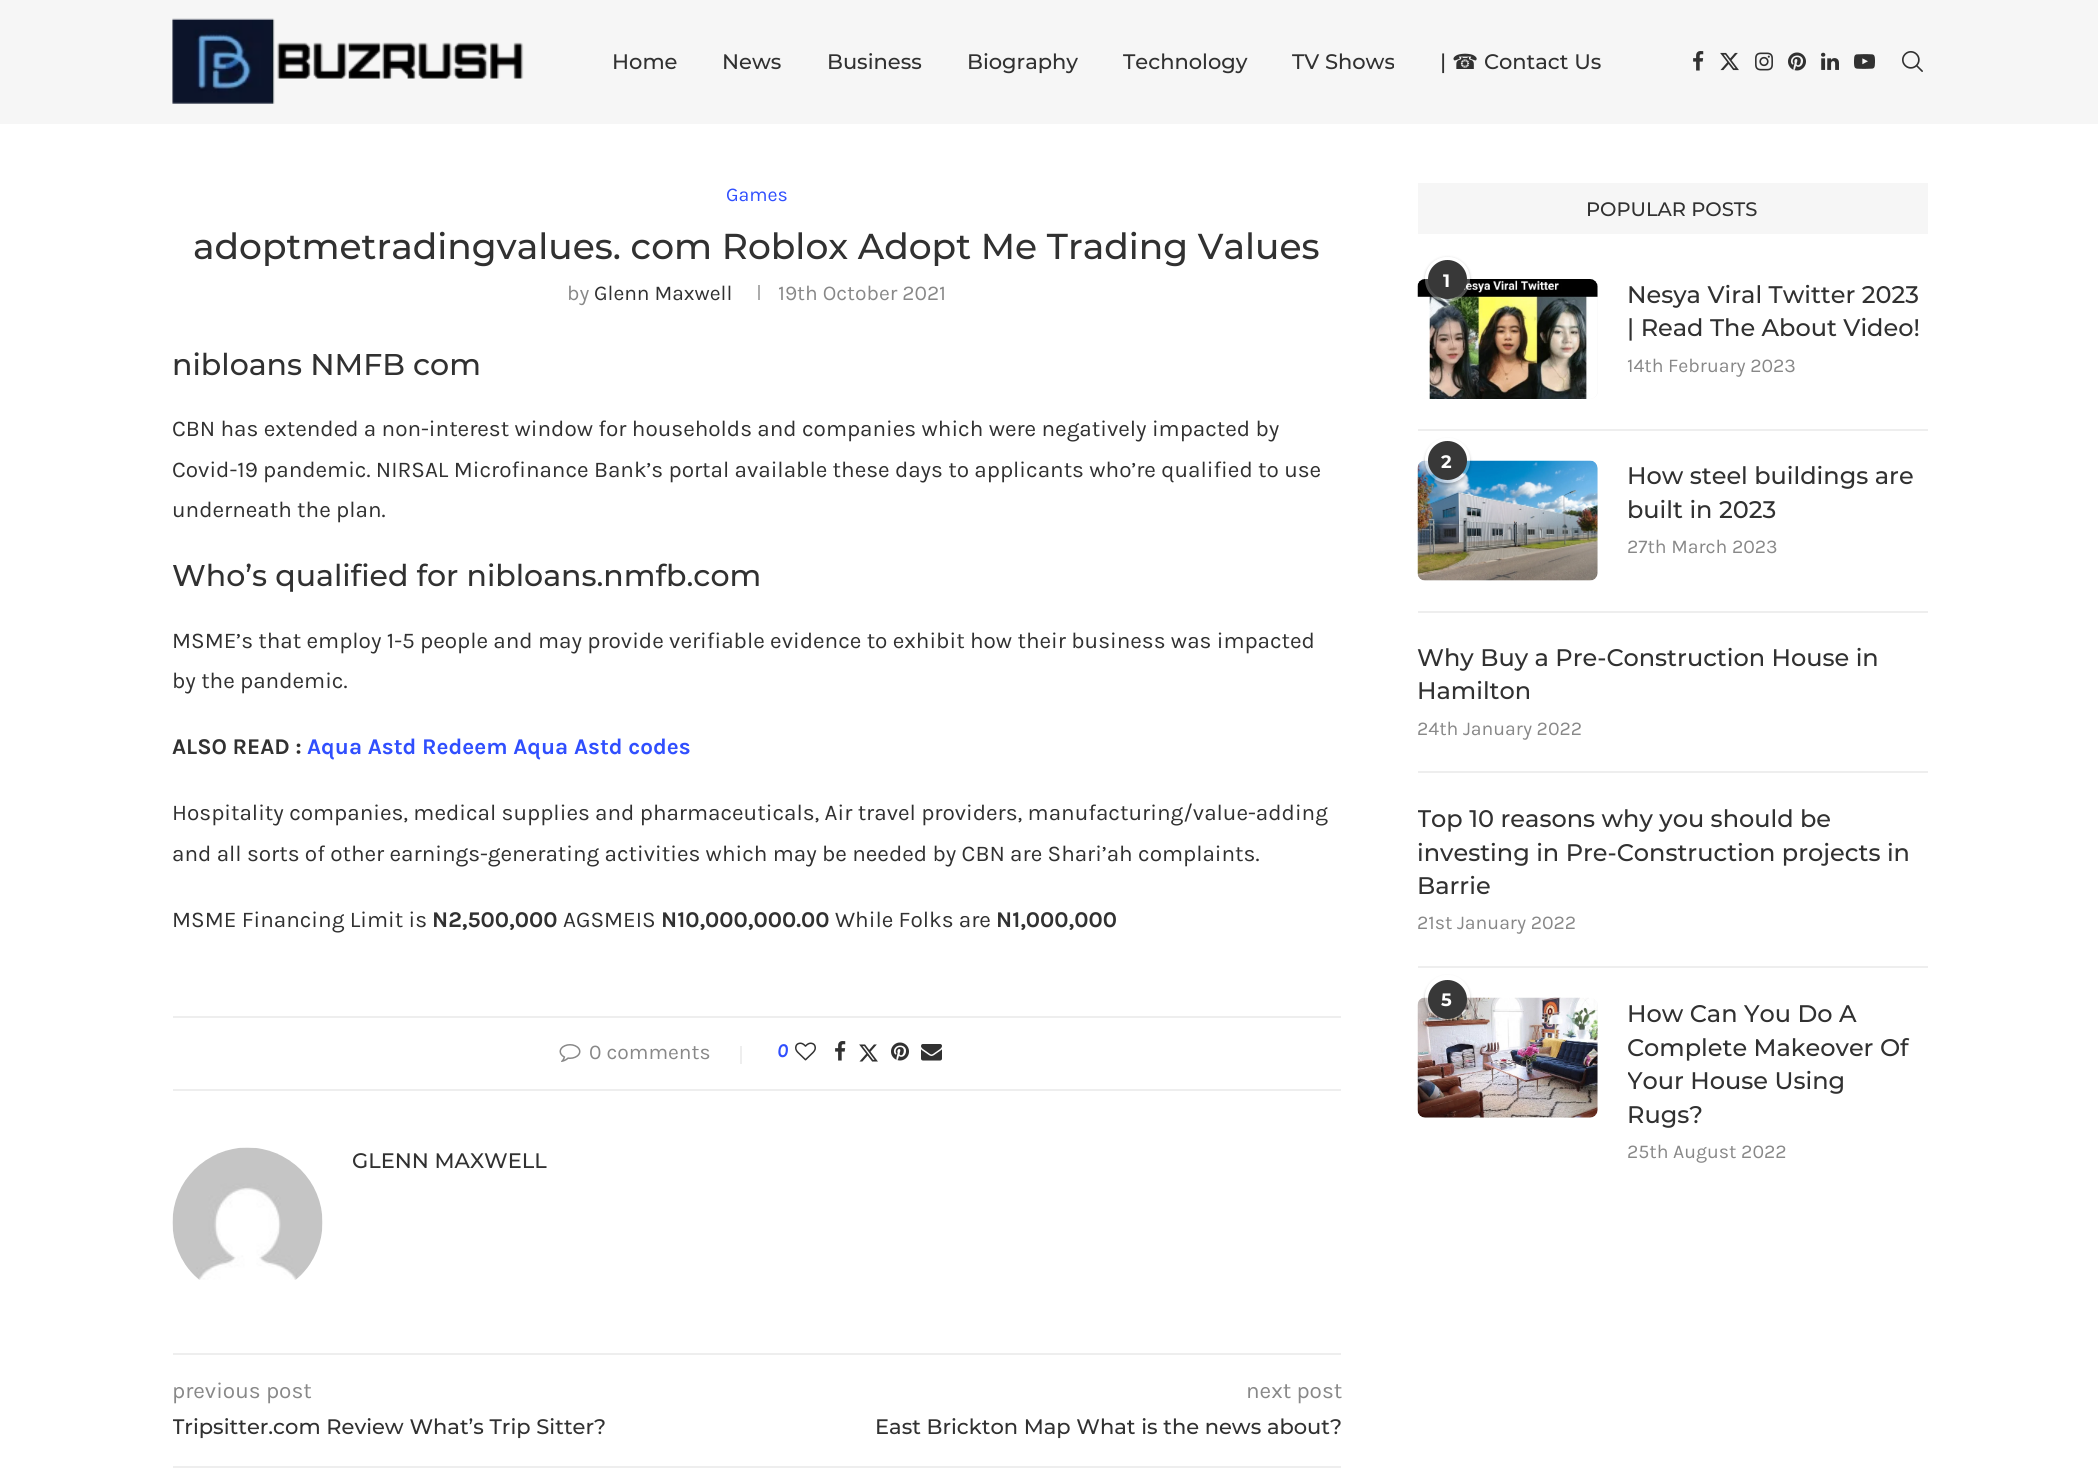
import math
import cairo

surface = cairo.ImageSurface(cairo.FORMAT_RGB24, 2098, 1470)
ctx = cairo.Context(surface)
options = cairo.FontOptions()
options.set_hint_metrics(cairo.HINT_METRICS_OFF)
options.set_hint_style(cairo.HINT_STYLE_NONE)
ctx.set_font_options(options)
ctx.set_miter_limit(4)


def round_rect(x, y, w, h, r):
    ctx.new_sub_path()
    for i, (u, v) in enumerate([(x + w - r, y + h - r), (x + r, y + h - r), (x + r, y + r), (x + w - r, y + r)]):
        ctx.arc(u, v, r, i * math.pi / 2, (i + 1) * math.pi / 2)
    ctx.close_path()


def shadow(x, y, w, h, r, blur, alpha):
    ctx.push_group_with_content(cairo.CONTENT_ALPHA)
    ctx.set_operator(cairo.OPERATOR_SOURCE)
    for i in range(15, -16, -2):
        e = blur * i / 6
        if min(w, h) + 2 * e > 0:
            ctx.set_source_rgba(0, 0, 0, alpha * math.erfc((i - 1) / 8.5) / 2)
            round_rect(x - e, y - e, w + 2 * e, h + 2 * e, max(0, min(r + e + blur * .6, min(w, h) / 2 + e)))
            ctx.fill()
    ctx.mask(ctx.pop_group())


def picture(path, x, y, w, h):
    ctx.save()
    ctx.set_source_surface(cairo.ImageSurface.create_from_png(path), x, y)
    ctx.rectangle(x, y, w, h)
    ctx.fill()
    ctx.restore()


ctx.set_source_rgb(1, 1, 1)
ctx.paint()
ctx.set_source_rgb(0.961, 0.961, 0.961)
ctx.rectangle(0, 0, 2098, 124)
ctx.fill()
picture("img1.png", 172, 18, 352, 86)
ctx.select_font_face("Montserrat Medium")
ctx.set_font_size(21)
ctx.set_source_rgb(0.192, 0.192, 0.192)
ctx.move_to(612, 69)
ctx.show_text("Home")
ctx.move_to(722, 69)
ctx.show_text("News")
ctx.move_to(827, 69)
ctx.show_text("Business")
ctx.move_to(967, 69)
ctx.show_text("Biography")
ctx.move_to(1123, 69)
ctx.show_text("Technology")
ctx.move_to(1292, 69)
ctx.show_text("TV Shows")
ctx.move_to(1440, 69)
ctx.show_text("|")
ctx.select_font_face("DejaVu Sans")
ctx.move_to(1452, 69)
ctx.show_text("☎")
ctx.select_font_face("Montserrat Medium")
ctx.move_to(1484, 69)
ctx.show_text("Contact Us")
picture("img2.png", 1693, 51, 11, 20)
picture("img3.png", 1720, 52, 19, 19)
picture("img4.png", 1755, 52, 18, 19)
picture("img5.png", 1788, 52, 18, 19)
picture("img6.png", 1821, 52, 18, 18)
picture("img7.png", 1854, 54, 21, 15)
picture("img8.png", 1902, 51, 21, 21)
ctx.select_font_face("Karla")
ctx.set_font_size(19.5)
ctx.set_source_rgb(0.188, 0.31, 0.996)
ctx.move_to(726, 201)
ctx.show_text("Games")
ctx.select_font_face("Montserrat Medium")
ctx.set_font_size(36)
ctx.set_source_rgb(0.192, 0.192, 0.192)
ctx.move_to(193, 259)
ctx.show_text("adoptmetradingvalues. com Roblox Adopt Me Trading Values")
ctx.select_font_face("Karla")
ctx.set_font_size(21)
ctx.set_source_rgb(0.533, 0.533, 0.533)
ctx.move_to(567, 300)
ctx.show_text("by")
ctx.set_source_rgb(0.192, 0.192, 0.192)
ctx.move_to(594, 300)
ctx.show_text("Glenn Maxwell")
ctx.set_source_rgb(0.675, 0.675, 0.675)
ctx.rectangle(758, 285, 2, 15)
ctx.fill()
ctx.set_source_rgb(0.533, 0.533, 0.533)
ctx.move_to(778, 300)
ctx.show_text("19th October 2021")
ctx.select_font_face("Montserrat Medium")
ctx.set_font_size(30)
ctx.set_source_rgb(0.192, 0.192, 0.192)
ctx.move_to(172, 375)
ctx.show_text("nibloans NMFB com")
ctx.select_font_face("Karla")
ctx.set_font_size(22.5)
ctx.move_to(172, 436)
ctx.show_text("CBN has extended a non-interest window for households and companies which were negatively impacted by")
ctx.move_to(172, 477)
ctx.show_text("Covid-19 pandemic. NIRSAL Microfinance Bank’s portal available these days to applicants who’re qualified to use")
ctx.move_to(172, 517)
ctx.show_text("underneath the plan.")
ctx.select_font_face("Montserrat Medium")
ctx.set_font_size(30)
ctx.move_to(172, 586)
ctx.show_text("Who’s qualified for nibloans.nmfb.com")
ctx.select_font_face("Karla")
ctx.set_font_size(22.5)
ctx.move_to(172, 648)
ctx.show_text("MSME’s that employ 1-5 people and may provide verifiable evidence to exhibit how their business was impacted")
ctx.move_to(172, 688)
ctx.show_text("by the pandemic.")
ctx.select_font_face("Karla", cairo.FONT_SLANT_NORMAL, cairo.FONT_WEIGHT_BOLD)
ctx.move_to(172, 754)
ctx.show_text("ALSO READ :")
ctx.set_source_rgb(0.188, 0.31, 0.996)
ctx.move_to(307, 754)
ctx.show_text("Aqua Astd Redeem Aqua Astd codes")
ctx.select_font_face("Karla")
ctx.set_source_rgb(0.192, 0.192, 0.192)
ctx.move_to(172, 820)
ctx.show_text("Hospitality companies, medical supplies and pharmaceuticals, Air travel providers, manufacturing/value-adding")
ctx.move_to(172, 861)
ctx.show_text("and all sorts of other earnings-generating activities which may be needed by CBN are Shari’ah complaints.")
ctx.move_to(172, 927)
ctx.show_text("MSME Financing Limit is")
ctx.select_font_face("Karla", cairo.FONT_SLANT_NORMAL, cairo.FONT_WEIGHT_BOLD)
ctx.move_to(432, 927)
ctx.show_text("N2,500,000")
ctx.select_font_face("Karla")
ctx.move_to(563, 927)
ctx.show_text("AGSMEIS")
ctx.select_font_face("Karla", cairo.FONT_SLANT_NORMAL, cairo.FONT_WEIGHT_BOLD)
ctx.move_to(661, 927)
ctx.show_text("N10,000,000.00")
ctx.select_font_face("Karla")
ctx.move_to(835, 927)
ctx.show_text("While Folks are")
ctx.select_font_face("Karla", cairo.FONT_SLANT_NORMAL, cairo.FONT_WEIGHT_BOLD)
ctx.move_to(996, 927)
ctx.show_text("N1,000,000")
ctx.set_source_rgb(0.933, 0.933, 0.933)
ctx.rectangle(173, 1016, 1168, 2)
ctx.fill()
picture("img9.png", 559, 1044, 22, 18)
ctx.select_font_face("Karla")
ctx.set_font_size(21)
ctx.set_source_rgb(0.533, 0.533, 0.533)
ctx.move_to(589, 1059)
ctx.show_text("0 comments")
ctx.set_source_rgb(0.933, 0.933, 0.933)
ctx.rectangle(740, 1046, 2, 18)
ctx.fill()
ctx.select_font_face("Karla", cairo.FONT_SLANT_ITALIC, cairo.FONT_WEIGHT_BOLD)
ctx.set_font_size(19.5)
ctx.set_source_rgb(0.188, 0.31, 0.996)
ctx.move_to(777, 1057)
ctx.show_text("0")
picture("img10.png", 795, 1042, 21, 19)
picture("img11.png", 835, 1041, 11, 20)
picture("img12.png", 859, 1044, 19, 18)
picture("img13.png", 891, 1042, 18, 19)
picture("img14.png", 921, 1044, 21, 17)
ctx.set_source_rgb(0.933, 0.933, 0.933)
ctx.rectangle(173, 1089, 1168, 2)
ctx.fill()
picture("img15.png", 172, 1147, 151, 133)
ctx.select_font_face("Montserrat Medium")
ctx.set_font_size(21)
ctx.set_source_rgb(0.192, 0.192, 0.192)
ctx.move_to(352, 1168)
ctx.show_text("GLENN MAXWELL")
ctx.set_source_rgb(0.933, 0.933, 0.933)
ctx.rectangle(173, 1353, 1168, 2)
ctx.fill()
ctx.select_font_face("Karla")
ctx.set_font_size(22.5)
ctx.set_source_rgb(0.533, 0.533, 0.533)
ctx.move_to(172, 1398)
ctx.show_text("previous post")
ctx.save()
ctx.rectangle(173, 1355, 1168, 111)
ctx.clip()
ctx.select_font_face("Montserrat Medium")
ctx.set_font_size(21)
ctx.set_source_rgb(0.192, 0.192, 0.192)
ctx.move_to(172, 1434)
ctx.show_text("Tripsitter.com Review What’s Trip Sitter?")
ctx.restore()
ctx.move_to(1246, 1398)
ctx.show_text("next post")
ctx.select_font_face("Montserrat Medium")
ctx.set_font_size(21)
ctx.set_source_rgb(0.192, 0.192, 0.192)
ctx.move_to(875, 1434)
ctx.show_text("East Brickton Map What is the news about?")
ctx.set_source_rgb(0.933, 0.933, 0.933)
ctx.rectangle(173, 1466, 1168, 2)
ctx.fill()
ctx.set_source_rgb(0.961, 0.961, 0.961)
ctx.rectangle(1418, 183, 510, 51)
ctx.fill()
ctx.set_font_size(19.5)
ctx.set_source_rgb(0.192, 0.192, 0.192)
ctx.move_to(1586, 216)
ctx.show_text("POPULAR POSTS")
ctx.set_source_rgb(0.933, 0.933, 0.933)
ctx.rectangle(1418, 429, 510, 2)
ctx.fill()
ctx.set_source_rgb(0.961, 0.961, 0.961)
round_rect(1418, 279, 180, 120, 8)
ctx.fill()
picture("img16.png", 1417, 279, 181, 120)
ctx.save()
ctx.set_fill_rule(cairo.FILL_RULE_EVEN_ODD)
ctx.new_path()
ctx.move_to(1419, 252)
ctx.line_to(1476, 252)
ctx.line_to(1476, 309)
ctx.line_to(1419, 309)
ctx.close_path()
ctx.move_to(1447.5, 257)
ctx.curve_to(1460, 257, 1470, 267, 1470, 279.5)
ctx.curve_to(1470, 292, 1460, 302, 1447.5, 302)
ctx.curve_to(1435, 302, 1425, 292, 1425, 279.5)
ctx.curve_to(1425, 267, 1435, 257, 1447.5, 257)
ctx.close_path()
ctx.clip()
ctx.set_source_rgb(0, 0, 0)
shadow(1425, 258, 45, 45, 22.5, 1.5, 0.25)
ctx.restore()
ctx.set_source_rgba(1, 1, 1, 0.3)
ctx.arc(1447.5, 279.5, 22.5, 0, 2 * math.pi)
ctx.fill()
ctx.set_source_rgb(0.22, 0.22, 0.22)
ctx.arc(1447.5, 279.5, 19.5, 0, 2 * math.pi)
ctx.fill()
ctx.select_font_face("Montserrat", cairo.FONT_SLANT_NORMAL, cairo.FONT_WEIGHT_BOLD)
ctx.set_font_size(18)
ctx.set_source_rgb(1, 1, 1)
ctx.move_to(1443, 287)
ctx.show_text("1")
ctx.select_font_face("Montserrat Medium")
ctx.set_font_size(24)
ctx.set_source_rgb(0.192, 0.192, 0.192)
ctx.move_to(1627, 303)
ctx.show_text("Nesya Viral Twitter 2023")
ctx.move_to(1627, 336)
ctx.show_text("| Read The About Video!")
ctx.select_font_face("Karla")
ctx.set_font_size(19.5)
ctx.set_source_rgb(0.533, 0.533, 0.533)
ctx.move_to(1627, 372)
ctx.show_text("14th February 2023")
ctx.set_source_rgb(0.933, 0.933, 0.933)
ctx.rectangle(1418, 611, 510, 2)
ctx.fill()
ctx.set_source_rgb(0.961, 0.961, 0.961)
round_rect(1418, 461, 180, 120, 8)
ctx.fill()
picture("img17.png", 1417, 460, 181, 121)
ctx.save()
ctx.set_fill_rule(cairo.FILL_RULE_EVEN_ODD)
ctx.new_path()
ctx.move_to(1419, 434)
ctx.line_to(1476, 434)
ctx.line_to(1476, 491)
ctx.line_to(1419, 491)
ctx.close_path()
ctx.move_to(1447.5, 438)
ctx.curve_to(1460, 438, 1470, 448, 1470, 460.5)
ctx.curve_to(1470, 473, 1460, 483, 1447.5, 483)
ctx.curve_to(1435, 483, 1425, 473, 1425, 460.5)
ctx.curve_to(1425, 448, 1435, 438, 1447.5, 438)
ctx.close_path()
ctx.clip()
ctx.set_source_rgb(0, 0, 0)
shadow(1425, 440, 45, 45, 22.5, 1.5, 0.25)
ctx.restore()
ctx.set_source_rgba(1, 1, 1, 0.3)
ctx.arc(1447.5, 460.5, 22.5, 0, 2 * math.pi)
ctx.fill()
ctx.set_source_rgb(0.22, 0.22, 0.22)
ctx.arc(1447.5, 460.5, 19.5, 0, 2 * math.pi)
ctx.fill()
ctx.select_font_face("Montserrat", cairo.FONT_SLANT_NORMAL, cairo.FONT_WEIGHT_BOLD)
ctx.set_font_size(18)
ctx.set_source_rgb(1, 1, 1)
ctx.move_to(1441, 468)
ctx.show_text("2")
ctx.select_font_face("Montserrat Medium")
ctx.set_font_size(24)
ctx.set_source_rgb(0.192, 0.192, 0.192)
ctx.move_to(1627, 484)
ctx.show_text("How steel buildings are")
ctx.move_to(1627, 518)
ctx.show_text("built in 2023")
ctx.select_font_face("Karla")
ctx.set_font_size(19.5)
ctx.set_source_rgb(0.533, 0.533, 0.533)
ctx.move_to(1627, 553)
ctx.show_text("27th March 2023")
ctx.set_source_rgb(0.933, 0.933, 0.933)
ctx.rectangle(1418, 771, 510, 2)
ctx.fill()
ctx.select_font_face("Montserrat Medium")
ctx.set_font_size(24)
ctx.set_source_rgb(0.192, 0.192, 0.192)
ctx.move_to(1417, 666)
ctx.show_text("Why Buy a Pre-Construction House in")
ctx.move_to(1417, 699)
ctx.show_text("Hamilton")
ctx.select_font_face("Karla")
ctx.set_font_size(19.5)
ctx.set_source_rgb(0.533, 0.533, 0.533)
ctx.move_to(1417, 735)
ctx.show_text("24th January 2022")
ctx.set_source_rgb(0.933, 0.933, 0.933)
ctx.rectangle(1418, 966, 510, 2)
ctx.fill()
ctx.save()
ctx.rectangle(1418, 803, 510, 133)
ctx.clip()
ctx.select_font_face("Montserrat Medium")
ctx.set_font_size(24)
ctx.set_source_rgb(0.192, 0.192, 0.192)
ctx.move_to(1417, 827)
ctx.show_text("Top 10 reasons why you should be")
ctx.restore()
ctx.select_font_face("Montserrat Medium")
ctx.set_font_size(24)
ctx.set_source_rgb(0.192, 0.192, 0.192)
ctx.move_to(1417, 861)
ctx.show_text("investing in Pre-Construction projects in")
ctx.move_to(1417, 894)
ctx.show_text("Barrie")
ctx.select_font_face("Karla")
ctx.set_font_size(19.5)
ctx.set_source_rgb(0.533, 0.533, 0.533)
ctx.move_to(1417, 929)
ctx.show_text("21st January 2022")
ctx.set_source_rgb(0.961, 0.961, 0.961)
round_rect(1418, 998, 180, 120, 8)
ctx.fill()
picture("img18.png", 1417, 997, 181, 121)
ctx.save()
ctx.set_fill_rule(cairo.FILL_RULE_EVEN_ODD)
ctx.new_path()
ctx.move_to(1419, 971)
ctx.line_to(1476, 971)
ctx.line_to(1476, 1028)
ctx.line_to(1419, 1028)
ctx.close_path()
ctx.move_to(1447.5, 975)
ctx.curve_to(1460, 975, 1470, 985, 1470, 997.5)
ctx.curve_to(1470, 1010, 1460, 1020, 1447.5, 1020)
ctx.curve_to(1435, 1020, 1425, 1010, 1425, 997.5)
ctx.curve_to(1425, 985, 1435, 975, 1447.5, 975)
ctx.close_path()
ctx.clip()
ctx.set_source_rgb(0, 0, 0)
shadow(1425, 977, 45, 45, 22.5, 1.5, 0.25)
ctx.restore()
ctx.set_source_rgba(1, 1, 1, 0.3)
ctx.arc(1447.5, 997.5, 22.5, 0, 2 * math.pi)
ctx.fill()
ctx.set_source_rgb(0.22, 0.22, 0.22)
ctx.arc(1447.5, 999.5, 19.5, 0, 2 * math.pi)
ctx.fill()
ctx.select_font_face("Montserrat", cairo.FONT_SLANT_NORMAL, cairo.FONT_WEIGHT_BOLD)
ctx.set_font_size(18)
ctx.set_source_rgb(1, 1, 1)
ctx.move_to(1441, 1006)
ctx.show_text("5")
ctx.select_font_face("Montserrat Medium")
ctx.set_font_size(24)
ctx.set_source_rgb(0.192, 0.192, 0.192)
ctx.move_to(1627, 1022)
ctx.show_text("How Can You Do A")
ctx.move_to(1627, 1056)
ctx.show_text("Complete Makeover Of")
ctx.save()
ctx.rectangle(1628, 998, 300, 168)
ctx.clip()
ctx.move_to(1627, 1089)
ctx.show_text("Your House Using")
ctx.restore()
ctx.move_to(1627, 1123)
ctx.show_text("Rugs?")
ctx.select_font_face("Karla")
ctx.set_font_size(19.5)
ctx.set_source_rgb(0.533, 0.533, 0.533)
ctx.move_to(1627, 1158)
ctx.show_text("25th August 2022")
surface.write_to_png("page.png")
